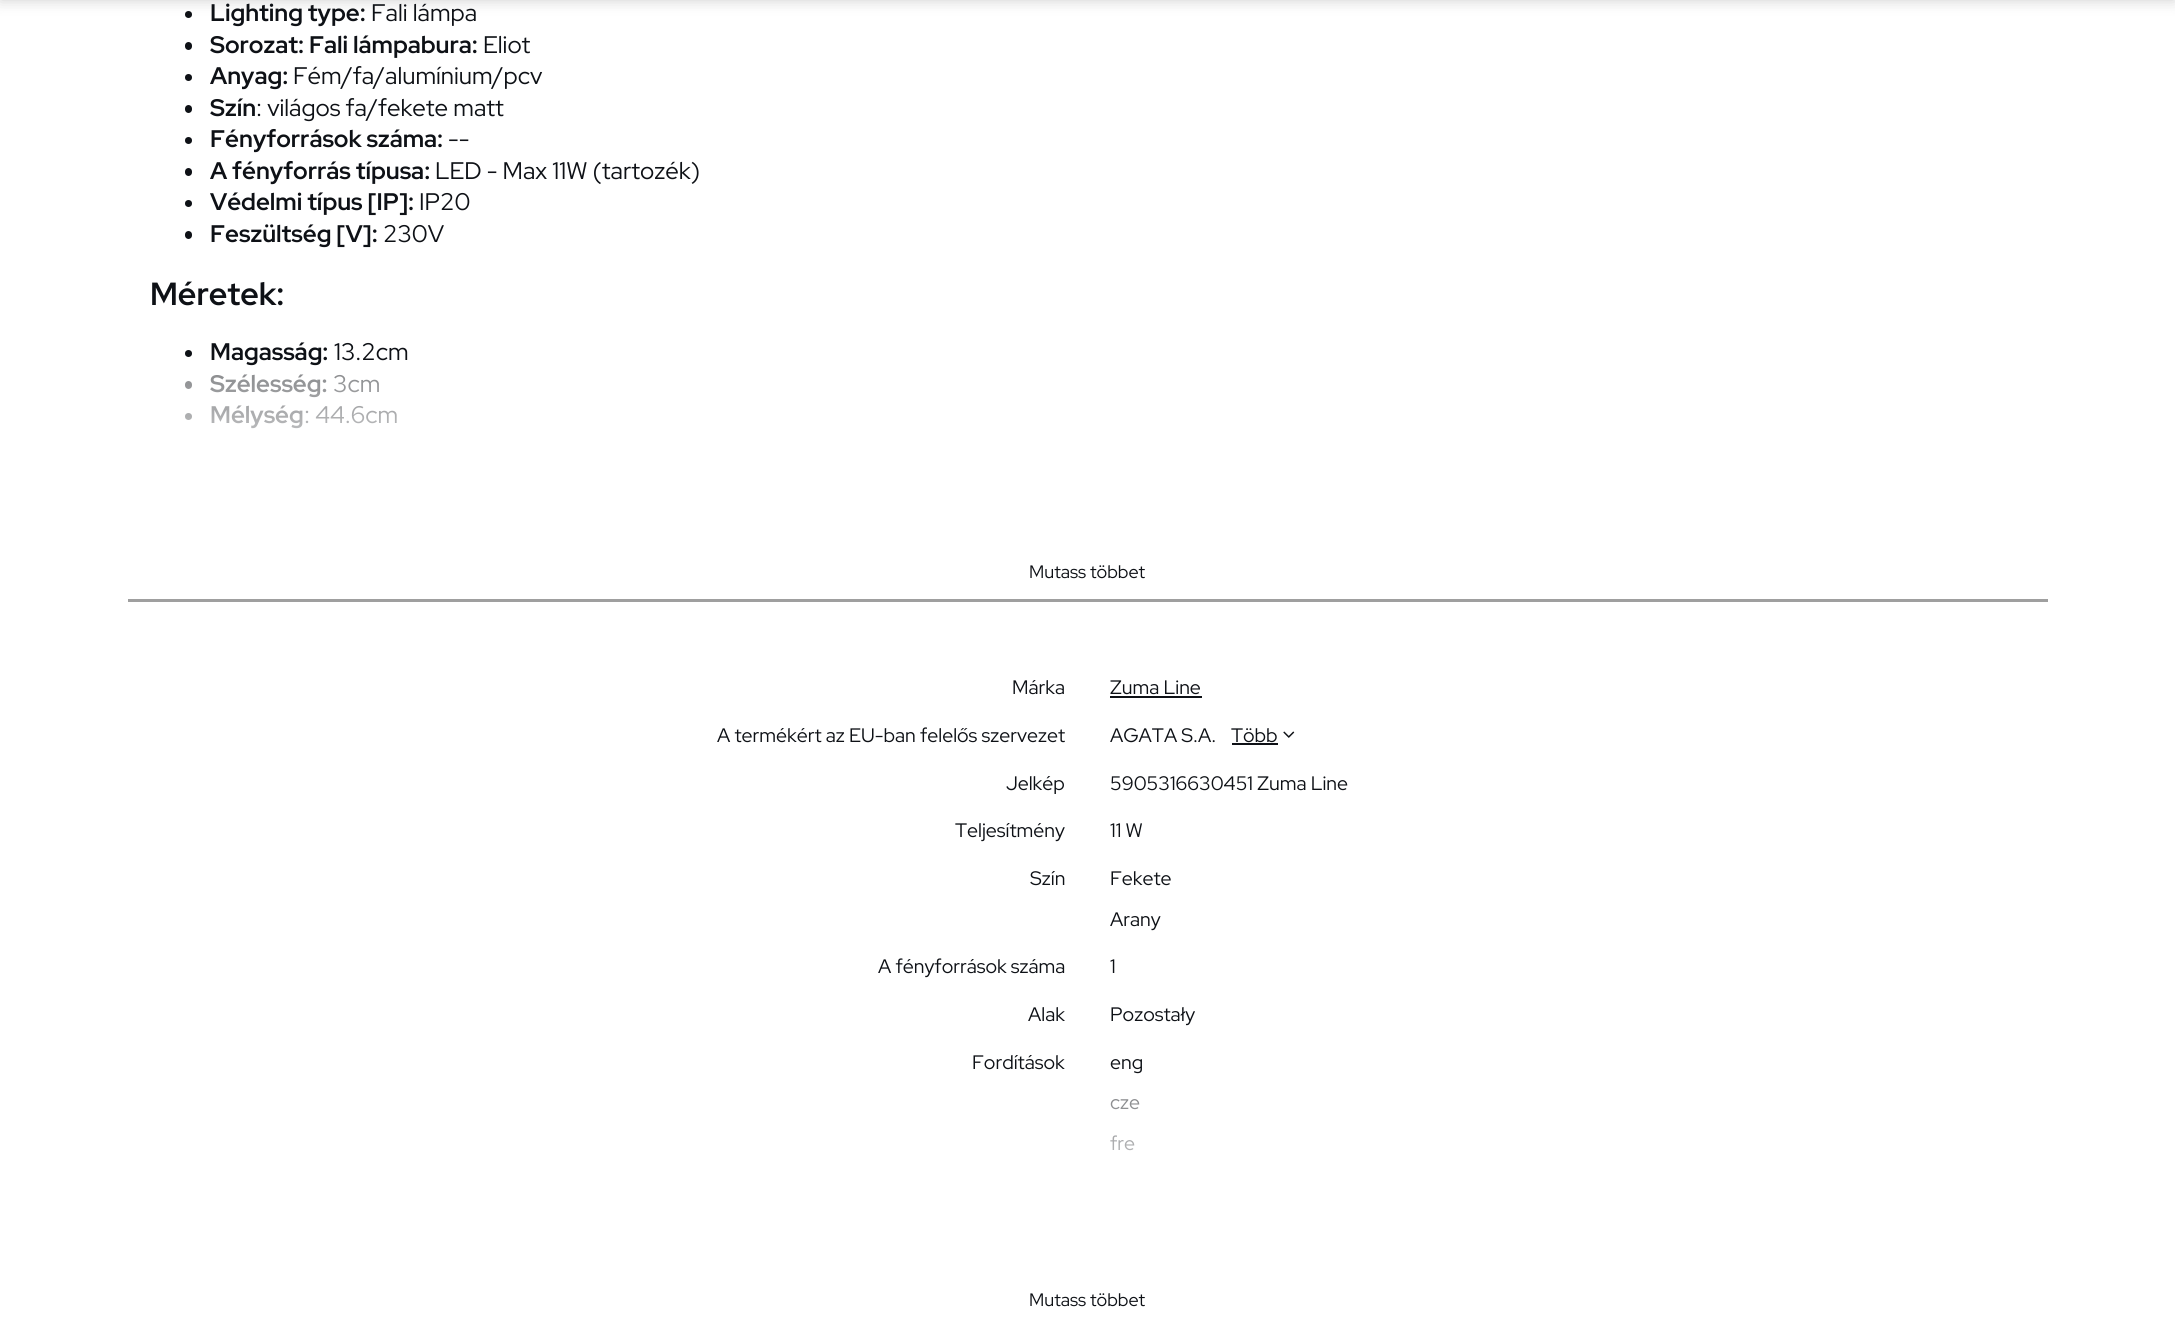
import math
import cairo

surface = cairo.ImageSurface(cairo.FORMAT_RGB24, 2175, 1318)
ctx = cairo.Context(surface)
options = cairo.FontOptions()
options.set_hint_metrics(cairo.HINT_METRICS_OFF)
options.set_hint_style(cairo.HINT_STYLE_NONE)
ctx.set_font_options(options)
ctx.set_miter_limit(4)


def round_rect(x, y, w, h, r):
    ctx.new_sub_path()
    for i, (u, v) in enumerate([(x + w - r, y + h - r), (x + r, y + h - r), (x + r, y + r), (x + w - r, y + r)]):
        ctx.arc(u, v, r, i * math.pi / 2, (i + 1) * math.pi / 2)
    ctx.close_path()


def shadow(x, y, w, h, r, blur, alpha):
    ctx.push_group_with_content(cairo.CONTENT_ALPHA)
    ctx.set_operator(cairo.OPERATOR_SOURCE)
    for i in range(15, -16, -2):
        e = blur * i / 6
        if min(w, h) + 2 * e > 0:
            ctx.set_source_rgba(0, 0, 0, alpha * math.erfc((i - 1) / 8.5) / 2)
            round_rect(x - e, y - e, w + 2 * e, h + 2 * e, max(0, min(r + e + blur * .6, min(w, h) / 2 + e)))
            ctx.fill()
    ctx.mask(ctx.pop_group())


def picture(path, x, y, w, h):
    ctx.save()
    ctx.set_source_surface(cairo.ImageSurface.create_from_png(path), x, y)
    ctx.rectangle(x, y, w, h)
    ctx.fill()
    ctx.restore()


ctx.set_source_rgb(1, 1, 1)
ctx.paint()
ctx.set_source_rgb(0.055, 0.067, 0.086)
ctx.arc(188.5, 14.5, 3.5, 0, 2 * math.pi)
ctx.fill()
ctx.set_source_rgb(0, 0, 0)
shadow(0, -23, 2175, 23, 0, 7.5, 0.2)
ctx.set_source_rgb(0.624, 0.624, 0.624)
ctx.rectangle(128, 599, 1920, 3)
ctx.fill()
ctx.select_font_face("Red Hat Display", cairo.FONT_SLANT_NORMAL, cairo.FONT_WEIGHT_BOLD)
ctx.set_font_size(24)
ctx.set_source_rgb(0.055, 0.067, 0.086)
ctx.move_to(210, 21)
ctx.show_text("Lighting type:")
ctx.select_font_face("Red Hat Display")
ctx.move_to(371, 21)
ctx.show_text("Fali lámpa")
round_rect(185, 42, 7, 8, 3.5)
ctx.fill()
ctx.select_font_face("Red Hat Display", cairo.FONT_SLANT_NORMAL, cairo.FONT_WEIGHT_BOLD)
ctx.move_to(210, 53)
ctx.show_text("Sorozat: Fali lámpabura:")
ctx.select_font_face("Red Hat Display")
ctx.move_to(483, 53)
ctx.show_text("Eliot")
ctx.new_path()
ctx.arc(188.5, 77.5, 3.5, 0, 2 * math.pi)
ctx.fill()
ctx.select_font_face("Red Hat Display", cairo.FONT_SLANT_NORMAL, cairo.FONT_WEIGHT_BOLD)
ctx.move_to(210, 84)
ctx.show_text("Anyag:")
ctx.select_font_face("Red Hat Display")
ctx.move_to(293, 84)
ctx.show_text("Fém/fa/alumínium/pcv")
round_rect(185, 105, 7, 8, 3.5)
ctx.fill()
ctx.select_font_face("Red Hat Display", cairo.FONT_SLANT_NORMAL, cairo.FONT_WEIGHT_BOLD)
ctx.move_to(210, 116)
ctx.show_text("Szín")
ctx.select_font_face("Red Hat Display")
ctx.move_to(256, 116)
ctx.show_text(": világos fa/fekete matt")
ctx.new_path()
ctx.arc(188.5, 140.5, 3.5, 0, 2 * math.pi)
ctx.fill()
ctx.select_font_face("Red Hat Display", cairo.FONT_SLANT_NORMAL, cairo.FONT_WEIGHT_BOLD)
ctx.move_to(210, 147)
ctx.show_text("Fényforrások száma:")
ctx.select_font_face("Red Hat Display")
ctx.move_to(448, 147)
ctx.show_text("--")
round_rect(185, 168, 7, 8, 3.5)
ctx.fill()
ctx.select_font_face("Red Hat Display", cairo.FONT_SLANT_NORMAL, cairo.FONT_WEIGHT_BOLD)
ctx.move_to(210, 179)
ctx.show_text("A fényforrás típusa:")
ctx.select_font_face("Red Hat Display")
ctx.move_to(435, 179)
ctx.show_text("LED - Max 11W (tartozék)")
ctx.new_path()
ctx.arc(188.5, 203.5, 3.5, 0, 2 * math.pi)
ctx.fill()
ctx.select_font_face("Red Hat Display", cairo.FONT_SLANT_NORMAL, cairo.FONT_WEIGHT_BOLD)
ctx.move_to(210, 210)
ctx.show_text("Védelmi típus [IP]:")
ctx.select_font_face("Red Hat Display")
ctx.move_to(419, 210)
ctx.show_text("IP20")
round_rect(185, 231, 7, 8, 3.5)
ctx.fill()
ctx.select_font_face("Red Hat Display", cairo.FONT_SLANT_NORMAL, cairo.FONT_WEIGHT_BOLD)
ctx.move_to(210, 242)
ctx.show_text("Feszültség [V]:")
ctx.select_font_face("Red Hat Display")
ctx.move_to(383, 242)
ctx.show_text("230V")
ctx.select_font_face("Red Hat Display", cairo.FONT_SLANT_NORMAL, cairo.FONT_WEIGHT_BOLD)
ctx.set_font_size(32)
ctx.move_to(150, 305)
ctx.show_text("Méretek:")
ctx.new_path()
ctx.arc(188.5, 353.5, 3.5, 0, 2 * math.pi)
ctx.fill()
ctx.set_font_size(24)
ctx.move_to(210, 360)
ctx.show_text("Magasság:")
ctx.select_font_face("Red Hat Display")
ctx.move_to(334, 360)
ctx.show_text("13.2cm")
round_rect(185, 381, 7, 8, 3.5)
ctx.fill()
ctx.select_font_face("Red Hat Display", cairo.FONT_SLANT_NORMAL, cairo.FONT_WEIGHT_BOLD)
ctx.move_to(210, 392)
ctx.show_text("Szélesség:")
ctx.select_font_face("Red Hat Display")
ctx.move_to(333, 392)
ctx.show_text("3cm")
ctx.new_path()
ctx.arc(188.5, 416.5, 3.5, 0, 2 * math.pi)
ctx.fill()
ctx.select_font_face("Red Hat Display", cairo.FONT_SLANT_NORMAL, cairo.FONT_WEIGHT_BOLD)
ctx.move_to(210, 423)
ctx.show_text("Mélység")
ctx.select_font_face("Red Hat Display")
ctx.move_to(304, 423)
ctx.show_text(": 44.6cm")
gradient = cairo.LinearGradient(1088, 367, 1088, 518)
gradient.add_color_stop_rgba(0, 1, 1, 1, 0.5)
gradient.add_color_stop_rgba(1, 1, 1, 1, 1)
ctx.set_source(gradient)
ctx.rectangle(185, 374, 212, 55)
ctx.fill()
ctx.set_font_size(18)
ctx.set_source_rgb(0.055, 0.067, 0.086)
ctx.move_to(1029, 578)
ctx.show_text("Mutass többet")
ctx.set_font_size(19.5)
ctx.move_to(1012, 694)
ctx.show_text("Márka")
ctx.move_to(1110, 694)
ctx.show_text("Zuma Line")
ctx.rectangle(1110, 696, 92, 2)
ctx.fill()
ctx.move_to(717, 742)
ctx.show_text("A termékért az EU-ban felelős szervezet")
ctx.move_to(1110, 742)
ctx.show_text("AGATA S.A.")
ctx.move_to(1231, 742)
ctx.show_text("Több")
ctx.rectangle(1232, 743, 46, 2)
ctx.fill()
picture("img1.png", 1283, 731, 12, 7)
ctx.move_to(1006, 790)
ctx.show_text("Jelkép")
ctx.move_to(1110, 790)
ctx.show_text("5905316630451 Zuma Line")
ctx.move_to(955, 837)
ctx.show_text("Teljesítmény")
ctx.move_to(1110, 837)
ctx.show_text("11 W")
ctx.move_to(1030, 885)
ctx.show_text("Szín")
ctx.move_to(1110, 885)
ctx.show_text("Fekete")
ctx.move_to(1110, 926)
ctx.show_text("Arany")
ctx.move_to(878, 973)
ctx.show_text("A fényforrások száma")
ctx.move_to(1110, 973)
ctx.show_text("1")
ctx.move_to(1028, 1021)
ctx.show_text("Alak")
ctx.move_to(1110, 1021)
ctx.show_text("Pozostały")
ctx.move_to(972, 1069)
ctx.show_text("Fordítások")
ctx.move_to(1110, 1069)
ctx.show_text("eng")
ctx.move_to(1110, 1109)
ctx.show_text("cze")
ctx.move_to(1110, 1150)
ctx.show_text("fre")
gradient = cairo.LinearGradient(1088, 1096, 1088, 1247)
gradient.add_color_stop_rgba(0, 1, 1, 1, 0.5)
gradient.add_color_stop_rgba(1, 1, 1, 1, 1)
ctx.set_source(gradient)
ctx.rectangle(1110, 1099, 30, 52)
ctx.fill()
ctx.set_font_size(18)
ctx.set_source_rgb(0.055, 0.067, 0.086)
ctx.move_to(1029, 1306)
ctx.show_text("Mutass többet")
surface.write_to_png("page.png")
